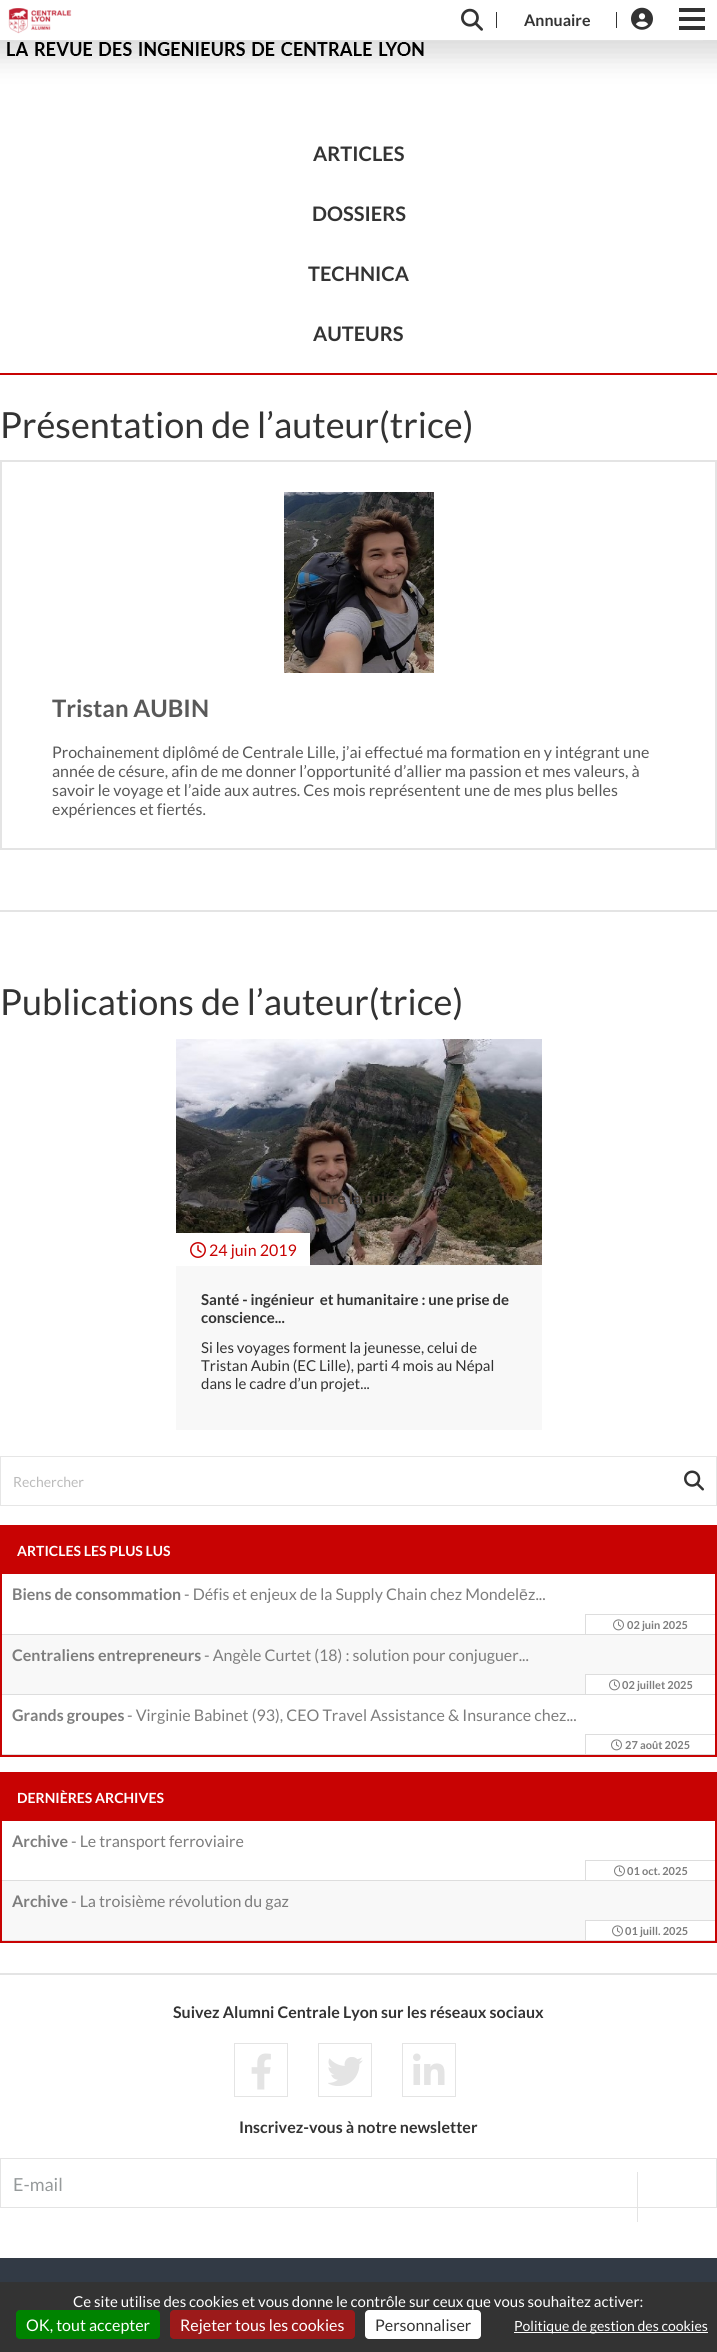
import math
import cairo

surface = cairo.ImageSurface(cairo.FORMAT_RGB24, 717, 2352)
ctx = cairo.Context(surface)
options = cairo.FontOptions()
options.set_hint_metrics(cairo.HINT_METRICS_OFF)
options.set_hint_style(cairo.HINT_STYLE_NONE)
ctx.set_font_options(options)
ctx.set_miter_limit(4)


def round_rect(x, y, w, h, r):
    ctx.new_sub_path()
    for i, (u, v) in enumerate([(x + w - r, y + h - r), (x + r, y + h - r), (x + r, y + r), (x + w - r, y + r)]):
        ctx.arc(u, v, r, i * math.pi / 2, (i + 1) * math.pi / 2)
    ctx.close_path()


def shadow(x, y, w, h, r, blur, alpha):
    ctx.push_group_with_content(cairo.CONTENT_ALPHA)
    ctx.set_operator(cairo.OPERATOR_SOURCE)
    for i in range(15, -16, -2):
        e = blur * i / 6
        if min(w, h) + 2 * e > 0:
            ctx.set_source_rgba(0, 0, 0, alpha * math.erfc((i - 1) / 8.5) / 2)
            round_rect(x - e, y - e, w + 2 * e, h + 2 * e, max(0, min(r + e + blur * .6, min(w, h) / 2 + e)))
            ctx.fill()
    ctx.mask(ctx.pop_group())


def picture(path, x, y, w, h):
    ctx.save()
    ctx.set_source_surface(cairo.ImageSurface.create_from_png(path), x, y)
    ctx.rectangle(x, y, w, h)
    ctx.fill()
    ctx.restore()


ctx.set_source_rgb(1, 1, 1)
ctx.paint()
picture("img4.png", 7, 41, 418, 15)
ctx.set_source_rgb(0, 0, 0)
shadow(-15, -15, 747, 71, 0, 15, 0.15)
ctx.set_source_rgb(1, 1, 1)
ctx.rectangle(0, 0, 717, 40)
ctx.fill()
ctx.set_source_rgb(0.886, 0.886, 0.886)
ctx.rectangle(14, 40, 689, 1)
ctx.fill()
picture("img1.png", 8, 8, 64, 26)
picture("img2.png", 461, 8, 22, 23)
ctx.set_source_rgb(0.2, 0.2, 0.2)
ctx.rectangle(496, 12, 1, 16)
ctx.fill()
ctx.select_font_face("Lato", cairo.FONT_SLANT_NORMAL, cairo.FONT_WEIGHT_BOLD)
ctx.set_font_size(16)
ctx.move_to(524, 26)
ctx.show_text("Annuaire")
ctx.rectangle(616, 12, 1, 16)
ctx.fill()
picture("img3.png", 631, 7, 22, 23)
ctx.rectangle(679, 8, 26, 4)
ctx.fill()
ctx.rectangle(679, 17, 26, 4)
ctx.fill()
ctx.rectangle(679, 26, 26, 4)
ctx.fill()
ctx.set_source_rgb(0.784, 0.012, 0.012)
ctx.rectangle(0, 373, 717, 2)
ctx.fill()
ctx.set_font_size(20)
ctx.set_source_rgb(0.2, 0.2, 0.2)
ctx.move_to(313, 161)
ctx.show_text("ARTICLES")
ctx.move_to(312, 221)
ctx.show_text("DOSSIERS")
ctx.move_to(308, 281)
ctx.show_text("TECHNICA")
ctx.move_to(313, 341)
ctx.show_text("AUTEURS")
ctx.set_source_rgb(0.894, 0.894, 0.894)
ctx.rectangle(0, 1973, 717, 2)
ctx.fill()
ctx.select_font_face("Lato")
ctx.set_font_size(36)
ctx.set_source_rgb(0.2, 0.2, 0.2)
ctx.move_to(0, 438)
ctx.show_text("Présentation de l’auteur(trice)")
ctx.rectangle(1, 461, 715, 388)
ctx.set_source_rgb(0.894, 0.894, 0.894)
ctx.stroke()
picture("img5.png", 284, 492, 150, 181)
ctx.select_font_face("Lato", cairo.FONT_SLANT_NORMAL, cairo.FONT_WEIGHT_BOLD)
ctx.set_font_size(24)
ctx.set_source_rgb(0.349, 0.349, 0.349)
ctx.move_to(52, 717)
ctx.show_text("Tristan AUBIN")
ctx.select_font_face("Lato")
ctx.set_font_size(16)
ctx.move_to(52, 758)
ctx.show_text("Prochainement diplômé de Centrale Lille, j’ai effectué ma formation en y intégrant une")
ctx.move_to(52, 777)
ctx.show_text("année de césure, afin de me donner l’opportunité d’allier ma passion et mes valeurs, à")
ctx.move_to(52, 796)
ctx.show_text("savoir le voyage et l’aide aux autres. Ces mois représentent une de mes plus belles")
ctx.move_to(52, 815)
ctx.show_text("expériences et fiertés.")
ctx.set_source_rgb(0.894, 0.894, 0.894)
ctx.rectangle(0, 910, 717, 2)
ctx.fill()
ctx.set_font_size(36)
ctx.set_source_rgb(0.2, 0.2, 0.2)
ctx.move_to(0, 1015)
ctx.show_text("Publications de l’auteur(trice)")
picture("img6.png", 176, 1039, 366, 226)
ctx.select_font_face("Lato", cairo.FONT_SLANT_NORMAL, cairo.FONT_WEIGHT_BOLD)
ctx.set_font_size(16)
ctx.set_source_rgb(0.271, 0.231, 0.196)
ctx.move_to(318, 1204)
ctx.show_text("Lire la suite")
ctx.set_source_rgb(0.969, 0.969, 0.969)
ctx.rectangle(176, 1265, 366, 165)
ctx.fill()
ctx.set_source_rgb(1, 1, 1)
ctx.rectangle(176, 1233, 134, 33)
ctx.fill()
picture("img7.png", 190, 1242, 16, 16)
ctx.select_font_face("Lato")
ctx.set_source_rgb(0.784, 0.012, 0.012)
ctx.move_to(209, 1256)
ctx.show_text("24 juin 2019")
ctx.select_font_face("Lato", cairo.FONT_SLANT_NORMAL, cairo.FONT_WEIGHT_BOLD)
ctx.set_font_size(15)
ctx.set_source_rgb(0.2, 0.2, 0.2)
ctx.move_to(201, 1305)
ctx.show_text("Santé - ingénieur  et humanitaire : une prise de")
ctx.move_to(201, 1323)
ctx.show_text("conscience...")
ctx.select_font_face("Lato")
ctx.move_to(201, 1353)
ctx.show_text("Si les voyages forment la jeunesse, celui de")
ctx.move_to(201, 1371)
ctx.show_text("Tristan Aubin (EC Lille), parti 4 mois au Népal")
ctx.move_to(201, 1389)
ctx.show_text("dans le cadre d’un projet...")
ctx.rectangle(0.5, 1456.5, 716, 49)
ctx.set_source_rgb(0.902, 0.902, 0.902)
ctx.set_line_width(1)
ctx.stroke()
ctx.set_font_size(14)
ctx.set_source_rgb(0.733, 0.733, 0.733)
ctx.move_to(13, 1487)
ctx.show_text("Rechercher")
picture("img8.png", 684, 1470, 20, 21)
ctx.rectangle(1, 1526, 715, 230)
ctx.set_source_rgb(0.784, 0.012, 0.012)
ctx.set_line_width(2)
ctx.stroke()
ctx.rectangle(2, 1527, 713, 47)
ctx.fill()
ctx.select_font_face("Lato", cairo.FONT_SLANT_NORMAL, cairo.FONT_WEIGHT_BOLD)
ctx.set_source_rgb(1, 1, 1)
ctx.move_to(17, 1556)
ctx.show_text("ARTICLES LES PLUS LUS")
ctx.set_source_rgb(0.867, 0.867, 0.867)
ctx.rectangle(2, 1634, 713, 1)
ctx.fill()
ctx.set_font_size(16)
ctx.set_source_rgb(0.49, 0.49, 0.49)
ctx.move_to(12, 1600)
ctx.show_text("Biens de consommation")
ctx.select_font_face("Lato")
ctx.move_to(184, 1600)
ctx.show_text("- Défis et enjeux de la Supply Chain chez Mondel")
ctx.select_font_face("Liberation Sans")
ctx.move_to(519, 1600)
ctx.show_text("ē")
ctx.select_font_face("Lato")
ctx.move_to(528, 1600)
ctx.show_text("z...")
ctx.set_source_rgb(0.867, 0.867, 0.867)
ctx.rectangle(585, 1614, 130, 1)
ctx.fill()
ctx.rectangle(585, 1614, 1, 20)
ctx.fill()
picture("img9.png", 613, 1619, 11, 12)
ctx.select_font_face("Lato", cairo.FONT_SLANT_NORMAL, cairo.FONT_WEIGHT_BOLD)
ctx.set_font_size(11)
ctx.set_source_rgb(0.49, 0.49, 0.49)
ctx.move_to(627, 1629)
ctx.show_text("02 juin 2025")
ctx.set_source_rgb(0.969, 0.969, 0.969)
ctx.rectangle(2, 1635, 713, 59)
ctx.fill()
ctx.set_source_rgb(0.867, 0.867, 0.867)
ctx.rectangle(2, 1694, 713, 1)
ctx.fill()
ctx.set_font_size(16)
ctx.set_source_rgb(0.49, 0.49, 0.49)
ctx.move_to(12, 1661)
ctx.show_text("Centraliens entrepreneurs")
ctx.select_font_face("Lato")
ctx.move_to(204, 1661)
ctx.show_text("- Angèle Curtet (18) : solution pour conjuguer...")
ctx.set_source_rgb(1, 1, 1)
ctx.rectangle(586, 1675, 129, 19)
ctx.fill()
ctx.set_source_rgb(0.867, 0.867, 0.867)
ctx.rectangle(585, 1674, 130, 1)
ctx.fill()
ctx.rectangle(585, 1674, 1, 20)
ctx.fill()
picture("img9.png", 609, 1679, 11, 12)
ctx.select_font_face("Lato", cairo.FONT_SLANT_NORMAL, cairo.FONT_WEIGHT_BOLD)
ctx.set_font_size(11)
ctx.set_source_rgb(0.49, 0.49, 0.49)
ctx.move_to(622, 1689)
ctx.show_text("02 juillet 2025")
ctx.set_source_rgb(0.867, 0.867, 0.867)
ctx.rectangle(2, 1754, 713, 1)
ctx.fill()
ctx.set_font_size(16)
ctx.set_source_rgb(0.49, 0.49, 0.49)
ctx.move_to(12, 1721)
ctx.show_text("Grands groupes")
ctx.select_font_face("Lato")
ctx.move_to(127, 1721)
ctx.show_text("- Virginie Babinet (93), CEO Travel Assistance & Insurance chez...")
ctx.set_source_rgb(0.867, 0.867, 0.867)
ctx.rectangle(585, 1734, 130, 1)
ctx.fill()
ctx.rectangle(585, 1734, 1, 20)
ctx.fill()
picture("img9.png", 611, 1739, 11, 12)
ctx.select_font_face("Lato", cairo.FONT_SLANT_NORMAL, cairo.FONT_WEIGHT_BOLD)
ctx.set_font_size(11)
ctx.set_source_rgb(0.49, 0.49, 0.49)
ctx.move_to(625, 1749)
ctx.show_text("27 août 2025")
ctx.rectangle(1, 1773, 715, 169)
ctx.set_source_rgb(0.784, 0.012, 0.012)
ctx.stroke()
ctx.rectangle(2, 1774, 713, 47)
ctx.fill()
ctx.set_font_size(14)
ctx.set_source_rgb(1, 1, 1)
ctx.move_to(17, 1803)
ctx.show_text("DERNIÈRES ARCHIVES")
ctx.set_source_rgb(0.867, 0.867, 0.867)
ctx.rectangle(2, 1880, 713, 1)
ctx.fill()
ctx.set_font_size(16)
ctx.set_source_rgb(0.49, 0.49, 0.49)
ctx.move_to(12, 1847)
ctx.show_text("Archive")
ctx.select_font_face("Lato")
ctx.move_to(71, 1847)
ctx.show_text("- Le transport ferroviaire")
ctx.set_source_rgb(0.867, 0.867, 0.867)
ctx.rectangle(585, 1860, 130, 1)
ctx.fill()
ctx.rectangle(585, 1860, 1, 20)
ctx.fill()
picture("img9.png", 614, 1865, 11, 12)
ctx.select_font_face("Lato", cairo.FONT_SLANT_NORMAL, cairo.FONT_WEIGHT_BOLD)
ctx.set_font_size(11)
ctx.set_source_rgb(0.49, 0.49, 0.49)
ctx.move_to(627, 1875)
ctx.show_text("01 oct. 2025")
ctx.set_source_rgb(0.969, 0.969, 0.969)
ctx.rectangle(2, 1881, 713, 59)
ctx.fill()
ctx.set_source_rgb(0.867, 0.867, 0.867)
ctx.rectangle(2, 1940, 713, 1)
ctx.fill()
ctx.set_font_size(16)
ctx.set_source_rgb(0.49, 0.49, 0.49)
ctx.move_to(12, 1907)
ctx.show_text("Archive")
ctx.select_font_face("Lato")
ctx.move_to(71, 1907)
ctx.show_text("- La troisième révolution du gaz")
ctx.set_source_rgb(1, 1, 1)
ctx.rectangle(586, 1921, 129, 19)
ctx.fill()
ctx.set_source_rgb(0.867, 0.867, 0.867)
ctx.rectangle(585, 1920, 130, 1)
ctx.fill()
ctx.rectangle(585, 1920, 1, 20)
ctx.fill()
picture("img9.png", 612, 1925, 11, 12)
ctx.select_font_face("Lato", cairo.FONT_SLANT_NORMAL, cairo.FONT_WEIGHT_BOLD)
ctx.set_font_size(11)
ctx.set_source_rgb(0.49, 0.49, 0.49)
ctx.move_to(625, 1935)
ctx.show_text("01 juill. 2025")
ctx.set_font_size(16)
ctx.set_source_rgb(0.2, 0.2, 0.2)
ctx.move_to(173, 2018)
ctx.show_text("Suivez Alumni Centrale Lyon sur les réseaux sociaux")
ctx.rectangle(234.5, 2043.5, 53, 53)
ctx.set_source_rgb(0.894, 0.894, 0.894)
ctx.set_line_width(1)
ctx.stroke()
picture("img10.png", 251, 2053, 20, 37)
ctx.rectangle(318.5, 2043.5, 53, 53)
ctx.stroke()
picture("img11.png", 328, 2057, 35, 29)
ctx.rectangle(402.5, 2043.5, 53, 53)
ctx.stroke()
picture("img12.png", 413, 2053, 32, 32)
ctx.set_source_rgb(0.2, 0.2, 0.2)
ctx.move_to(239, 2133)
ctx.show_text("Inscrivez-vous à notre newsletter")
ctx.rectangle(0.5, 2158.5, 716, 49)
ctx.set_source_rgb(0.894, 0.894, 0.894)
ctx.stroke()
ctx.select_font_face("Lato")
ctx.set_font_size(18)
ctx.set_source_rgb(0.588, 0.604, 0.608)
ctx.move_to(13, 2191)
ctx.show_text("E-mail")
ctx.set_source_rgb(0.894, 0.894, 0.894)
ctx.rectangle(637, 2172, 1, 50)
ctx.fill()
ctx.set_source_rgb(0.196, 0.227, 0.271)
ctx.rectangle(0, 2258, 717, 24)
ctx.fill()
ctx.set_source_rgb(0.2, 0.2, 0.2)
ctx.rectangle(0, 2282, 717, 70)
ctx.fill()
ctx.set_font_size(15)
ctx.set_source_rgb(1, 1, 1)
ctx.move_to(73, 2307)
ctx.show_text("Ce site utilise des cookies et vous donne le contrôle sur ceux que vous souhaitez activer:")
ctx.set_source_rgb(0, 0.514, 0)
round_rect(16, 2310, 144, 29, 4)
ctx.fill()
ctx.set_font_size(16)
ctx.set_source_rgb(1, 1, 1)
ctx.move_to(26, 2331)
ctx.show_text("OK, tout accepter")
ctx.set_source_rgb(0.612, 0.102, 0.102)
round_rect(170, 2310, 185, 29, 4)
ctx.fill()
ctx.set_source_rgb(1, 1, 1)
ctx.move_to(180, 2331)
ctx.show_text("Rejeter tous les cookies")
round_rect(365, 2310, 116, 29, 4)
ctx.fill()
ctx.set_source_rgb(0.2, 0.2, 0.2)
ctx.move_to(375, 2331)
ctx.show_text("Personnaliser")
ctx.set_source_rgb(1, 1, 1)
ctx.rectangle(514, 2332, 194, 1)
ctx.fill()
ctx.set_font_size(14)
ctx.move_to(514, 2331)
ctx.show_text("Politique de gestion des cookies")
surface.write_to_png("page.png")
